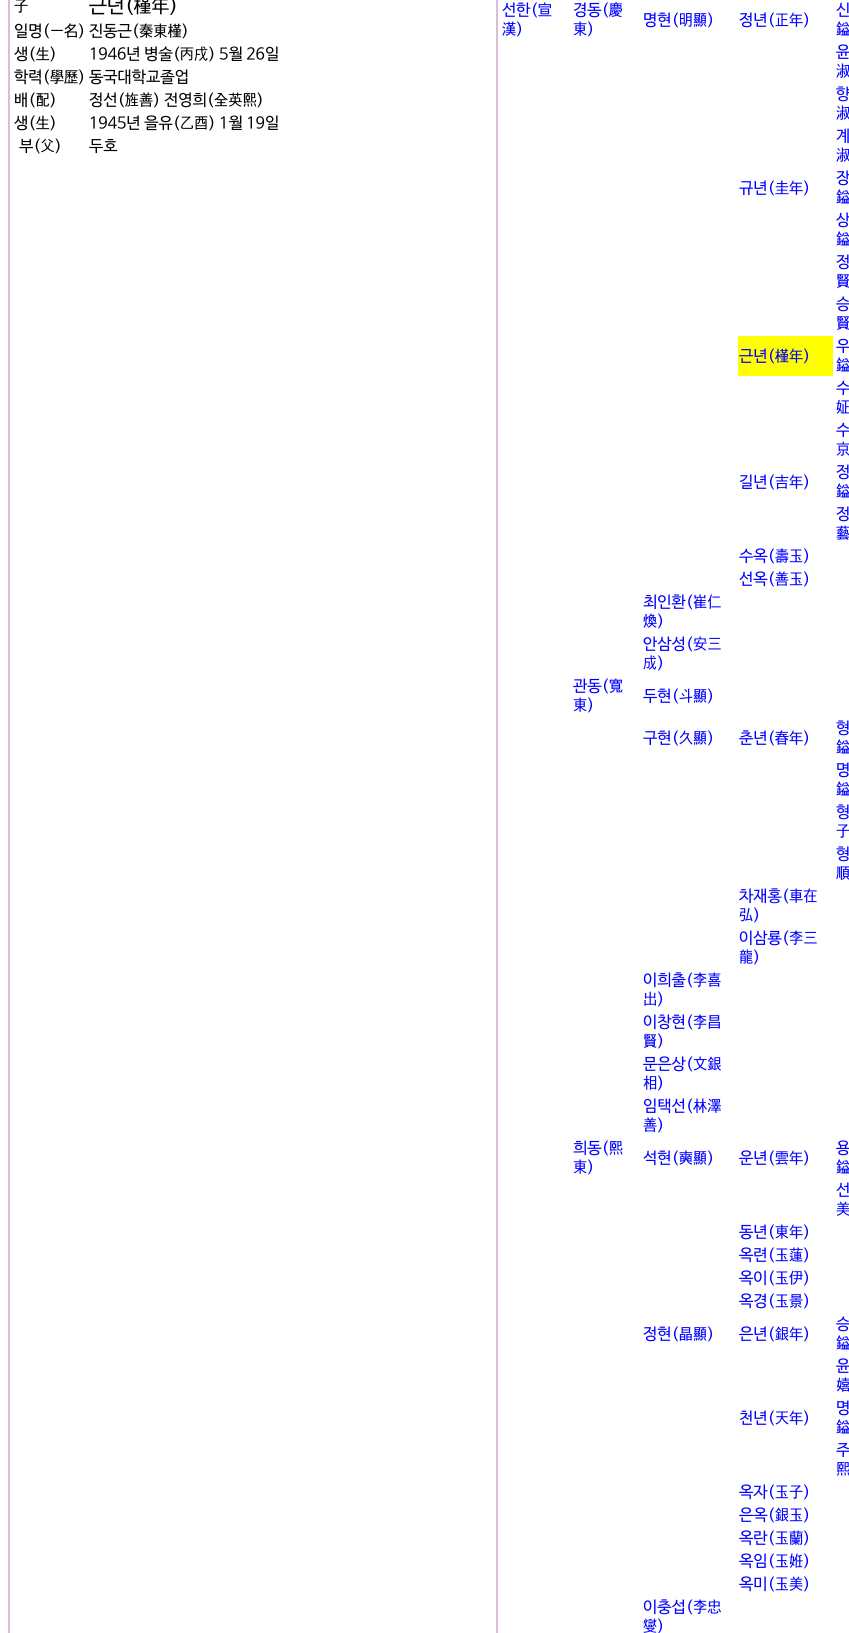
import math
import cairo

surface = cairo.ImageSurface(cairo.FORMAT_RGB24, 849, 1633)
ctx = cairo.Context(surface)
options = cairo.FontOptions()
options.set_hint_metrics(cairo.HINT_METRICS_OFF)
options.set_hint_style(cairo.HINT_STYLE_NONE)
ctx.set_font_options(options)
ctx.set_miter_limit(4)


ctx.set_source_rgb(1, 1, 1)
ctx.paint()
ctx.rectangle(8.5, -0.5, 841, 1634)
ctx.set_source_rgb(0.847, 0.749, 0.847)
ctx.set_line_width(1)
ctx.stroke()
ctx.rectangle(9.5, -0.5, 487, 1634)
ctx.stroke()
ctx.select_font_face("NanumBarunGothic")
ctx.set_font_size(16)
ctx.set_source_rgb(0, 0, 0)
ctx.move_to(14, 11)
ctx.show_text("子")
ctx.set_font_size(20)
ctx.move_to(89, 12)
ctx.show_text("근년(槿年)")
ctx.set_font_size(16)
ctx.move_to(14, 36)
ctx.show_text("일명(一名)")
ctx.move_to(89, 36)
ctx.show_text("진동근(秦東槿)")
ctx.move_to(14, 59)
ctx.show_text("생(生)")
ctx.move_to(89, 59)
ctx.show_text("1946년 병술(丙戌) 5월 26일")
ctx.move_to(14, 82)
ctx.show_text("학력(學歷)")
ctx.move_to(89, 82)
ctx.show_text("동국대학교졸업")
ctx.move_to(14, 105)
ctx.show_text("배(配)")
ctx.move_to(89, 105)
ctx.show_text("정선(旌善) 전영희(全英熙)")
ctx.move_to(14, 128)
ctx.show_text("생(生)")
ctx.move_to(89, 128)
ctx.show_text("1945년 을유(乙酉) 1월 19일")
ctx.move_to(19, 151)
ctx.show_text("부(父)")
ctx.move_to(89, 151)
ctx.show_text("두호")
ctx.rectangle(497.5, -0.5, 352, 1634)
ctx.set_source_rgb(0.847, 0.749, 0.847)
ctx.stroke()
ctx.set_source_rgb(0, 0, 1)
ctx.move_to(502, 15)
ctx.show_text("선한(宣")
ctx.move_to(502, 34)
ctx.show_text("漢)")
ctx.move_to(573, 15)
ctx.show_text("경동(慶")
ctx.move_to(573, 34)
ctx.show_text("東)")
ctx.move_to(643, 25)
ctx.show_text("명현(明顯)")
ctx.move_to(739, 25)
ctx.show_text("정년(正年)")
ctx.move_to(836, 15)
ctx.show_text("신")
ctx.move_to(836, 34)
ctx.show_text("鎰")
ctx.move_to(836, 57)
ctx.show_text("윤")
ctx.move_to(836, 76)
ctx.show_text("淑")
ctx.move_to(836, 99)
ctx.show_text("향")
ctx.move_to(836, 118)
ctx.show_text("淑")
ctx.move_to(836, 141)
ctx.show_text("계")
ctx.move_to(836, 160)
ctx.show_text("淑")
ctx.move_to(739, 193)
ctx.show_text("규년(圭年)")
ctx.move_to(836, 183)
ctx.show_text("장")
ctx.move_to(836, 202)
ctx.show_text("鎰")
ctx.move_to(836, 225)
ctx.show_text("상")
ctx.move_to(836, 244)
ctx.show_text("鎰")
ctx.move_to(836, 267)
ctx.show_text("정")
ctx.move_to(836, 286)
ctx.show_text("賢")
ctx.move_to(836, 309)
ctx.show_text("승")
ctx.move_to(836, 328)
ctx.show_text("賢")
ctx.set_source_rgb(1, 1, 0)
ctx.rectangle(738, 336, 95, 40)
ctx.fill()
ctx.set_source_rgb(0, 0, 1)
ctx.move_to(739, 361)
ctx.show_text("근년(槿年)")
ctx.move_to(836, 351)
ctx.show_text("우")
ctx.move_to(836, 370)
ctx.show_text("鎰")
ctx.move_to(836, 393)
ctx.show_text("수")
ctx.move_to(836, 412)
ctx.show_text("姃")
ctx.move_to(836, 435)
ctx.show_text("수")
ctx.move_to(836, 454)
ctx.show_text("京")
ctx.move_to(739, 487)
ctx.show_text("길년(吉年)")
ctx.move_to(836, 477)
ctx.show_text("정")
ctx.move_to(836, 496)
ctx.show_text("鎰")
ctx.move_to(836, 519)
ctx.show_text("정")
ctx.move_to(836, 538)
ctx.show_text("藝")
ctx.move_to(739, 561)
ctx.show_text("수옥(壽玉)")
ctx.move_to(739, 584)
ctx.show_text("선옥(善玉)")
ctx.move_to(643, 607)
ctx.show_text("최인환(崔仁")
ctx.move_to(643, 626)
ctx.show_text("煥)")
ctx.move_to(643, 649)
ctx.show_text("안삼성(安三")
ctx.move_to(643, 668)
ctx.show_text("成)")
ctx.move_to(573, 691)
ctx.show_text("관동(寬")
ctx.move_to(573, 710)
ctx.show_text("東)")
ctx.move_to(643, 701)
ctx.show_text("두현(斗顯)")
ctx.move_to(643, 743)
ctx.show_text("구현(久顯)")
ctx.move_to(739, 743)
ctx.show_text("춘년(春年)")
ctx.move_to(836, 733)
ctx.show_text("형")
ctx.move_to(836, 752)
ctx.show_text("鎰")
ctx.move_to(836, 775)
ctx.show_text("명")
ctx.move_to(836, 794)
ctx.show_text("鎰")
ctx.move_to(836, 817)
ctx.show_text("형")
ctx.move_to(836, 836)
ctx.show_text("子")
ctx.move_to(836, 859)
ctx.show_text("형")
ctx.move_to(836, 878)
ctx.show_text("順")
ctx.move_to(739, 901)
ctx.show_text("차재홍(車在")
ctx.move_to(739, 920)
ctx.show_text("弘)")
ctx.move_to(739, 943)
ctx.show_text("이삼룡(李三")
ctx.move_to(739, 962)
ctx.show_text("龍)")
ctx.move_to(643, 985)
ctx.show_text("이희출(李喜")
ctx.move_to(643, 1004)
ctx.show_text("出)")
ctx.move_to(643, 1027)
ctx.show_text("이창현(李昌")
ctx.move_to(643, 1046)
ctx.show_text("賢)")
ctx.move_to(643, 1069)
ctx.show_text("문은상(文銀")
ctx.move_to(643, 1088)
ctx.show_text("相)")
ctx.move_to(643, 1111)
ctx.show_text("임택선(林澤")
ctx.move_to(643, 1130)
ctx.show_text("善)")
ctx.move_to(573, 1153)
ctx.show_text("희동(熙")
ctx.move_to(573, 1172)
ctx.show_text("東)")
ctx.move_to(643, 1163)
ctx.show_text("석현(奭顯)")
ctx.move_to(739, 1163)
ctx.show_text("운년(雲年)")
ctx.move_to(836, 1153)
ctx.show_text("용")
ctx.move_to(836, 1172)
ctx.show_text("鎰")
ctx.move_to(836, 1195)
ctx.show_text("선")
ctx.move_to(836, 1214)
ctx.show_text("美")
ctx.move_to(739, 1237)
ctx.show_text("동년(東年)")
ctx.move_to(739, 1260)
ctx.show_text("옥련(玉蓮)")
ctx.move_to(739, 1283)
ctx.show_text("옥이(玉伊)")
ctx.move_to(739, 1306)
ctx.show_text("옥경(玉景)")
ctx.move_to(643, 1339)
ctx.show_text("정현(晶顯)")
ctx.move_to(739, 1339)
ctx.show_text("은년(銀年)")
ctx.move_to(836, 1329)
ctx.show_text("승")
ctx.move_to(836, 1348)
ctx.show_text("鎰")
ctx.move_to(836, 1371)
ctx.show_text("윤")
ctx.move_to(836, 1390)
ctx.show_text("嬉")
ctx.move_to(739, 1423)
ctx.show_text("천년(天年)")
ctx.move_to(836, 1413)
ctx.show_text("명")
ctx.move_to(836, 1432)
ctx.show_text("鎰")
ctx.move_to(836, 1455)
ctx.show_text("주")
ctx.move_to(836, 1474)
ctx.show_text("熙")
ctx.move_to(739, 1497)
ctx.show_text("옥자(玉子)")
ctx.move_to(739, 1520)
ctx.show_text("은옥(銀玉)")
ctx.move_to(739, 1543)
ctx.show_text("옥란(玉蘭)")
ctx.move_to(739, 1566)
ctx.show_text("옥임(玉姙)")
ctx.move_to(739, 1589)
ctx.show_text("옥미(玉美)")
ctx.move_to(643, 1612)
ctx.show_text("이충섭(李忠")
ctx.move_to(643, 1631)
ctx.show_text("燮)")
surface.write_to_png("page.png")
